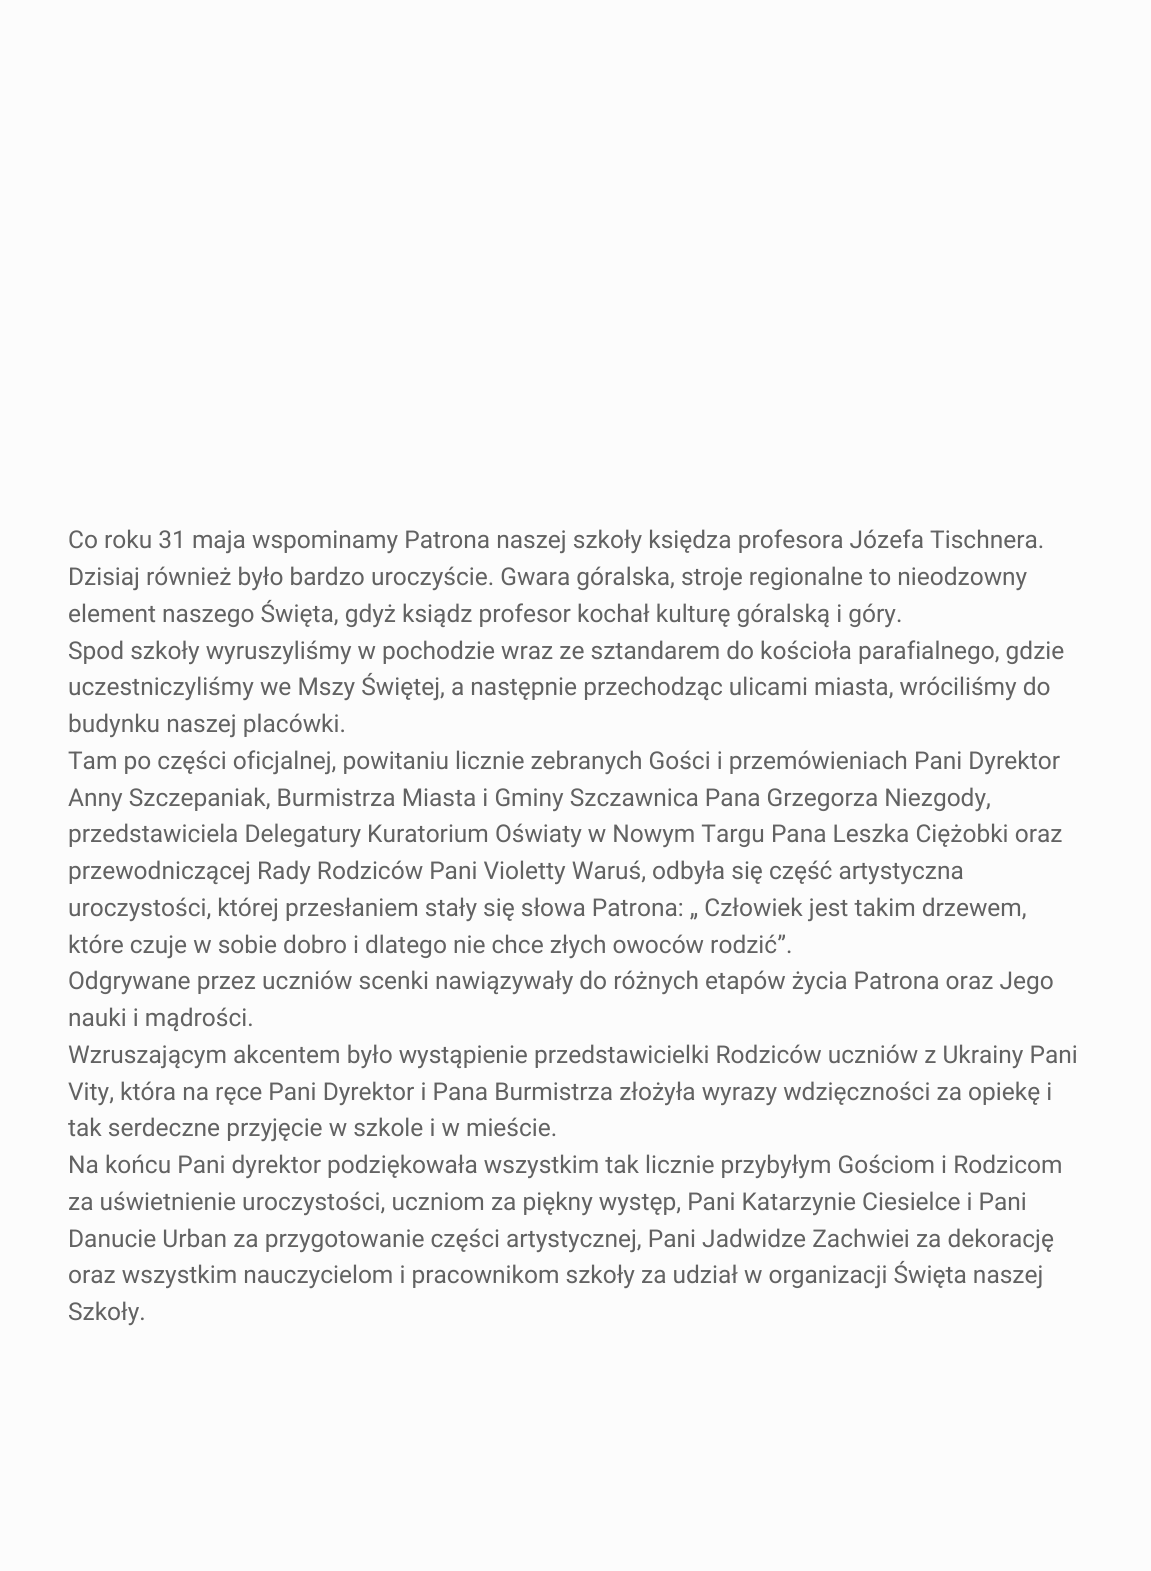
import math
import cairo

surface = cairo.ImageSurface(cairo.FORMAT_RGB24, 1151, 1571)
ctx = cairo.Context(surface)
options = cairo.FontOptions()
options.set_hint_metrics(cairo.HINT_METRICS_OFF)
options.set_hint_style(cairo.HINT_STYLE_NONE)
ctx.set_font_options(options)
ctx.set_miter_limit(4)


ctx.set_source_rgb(0.988, 0.988, 0.988)
ctx.paint()
ctx.select_font_face("Roboto")
ctx.set_font_size(24.5)
ctx.set_source_rgb(0.384, 0.384, 0.384)
ctx.move_to(68, 548)
ctx.show_text("Co roku 31 maja wspominamy Patrona naszej szkoły księdza profesora Józefa Tischnera.")
ctx.move_to(68, 585)
ctx.show_text("Dzisiaj również było bardzo uroczyście. Gwara góralska, stroje regionalne to nieodzowny")
ctx.move_to(68, 622)
ctx.show_text("element naszego Święta, gdyż ksiądz profesor kochał kulturę góralską i góry.")
ctx.move_to(68, 659)
ctx.show_text("Spod szkoły wyruszyliśmy w pochodzie wraz ze sztandarem do kościoła parafialnego, gdzie")
ctx.move_to(68, 695)
ctx.show_text("uczestniczyliśmy we Mszy Świętej, a następnie przechodząc ulicami miasta, wróciliśmy do")
ctx.move_to(68, 732)
ctx.show_text("budynku naszej placówki.")
ctx.move_to(68, 769)
ctx.show_text("Tam po części oficjalnej, powitaniu licznie zebranych Gości i przemówieniach Pani Dyrektor")
ctx.move_to(68, 806)
ctx.show_text("Anny Szczepaniak, Burmistrza Miasta i Gminy Szczawnica Pana Grzegorza Niezgody,")
ctx.move_to(68, 842)
ctx.show_text("przedstawiciela Delegatury Kuratorium Oświaty w Nowym Targu Pana Leszka Ciężobki oraz")
ctx.move_to(68, 879)
ctx.show_text("przewodniczącej Rady Rodziców Pani Violetty Waruś, odbyła się część artystyczna")
ctx.move_to(68, 916)
ctx.show_text("uroczystości, której przesłaniem stały się słowa Patrona: „ Człowiek jest takim drzewem,")
ctx.move_to(68, 953)
ctx.show_text("które czuje w sobie dobro i dlatego nie chce złych owoców rodzić”.")
ctx.move_to(68, 989)
ctx.show_text("Odgrywane przez uczniów scenki nawiązywały do różnych etapów życia Patrona oraz Jego")
ctx.move_to(68, 1026)
ctx.show_text("nauki i mądrości.")
ctx.move_to(68, 1063)
ctx.show_text("Wzruszającym akcentem było wystąpienie przedstawicielki Rodziców uczniów z Ukrainy Pani")
ctx.move_to(68, 1100)
ctx.show_text("Vity, która na ręce Pani Dyrektor i Pana Burmistrza złożyła wyrazy wdzięczności za opiekę i")
ctx.move_to(68, 1136)
ctx.show_text("tak serdeczne przyjęcie w szkole i w mieście.")
ctx.move_to(68, 1173)
ctx.show_text("Na końcu Pani dyrektor podziękowała wszystkim tak licznie przybyłym Gościom i Rodzicom")
ctx.move_to(68, 1210)
ctx.show_text("za uświetnienie uroczystości, uczniom za piękny występ, Pani Katarzynie Ciesielce i Pani")
ctx.move_to(68, 1247)
ctx.show_text("Danucie Urban za przygotowanie części artystycznej, Pani Jadwidze Zachwiei za dekorację")
ctx.move_to(68, 1283)
ctx.show_text("oraz wszystkim nauczycielom i pracownikom szkoły za udział w organizacji Święta naszej")
ctx.move_to(68, 1320)
ctx.show_text("Szkoły.")
surface.write_to_png("page.png")
